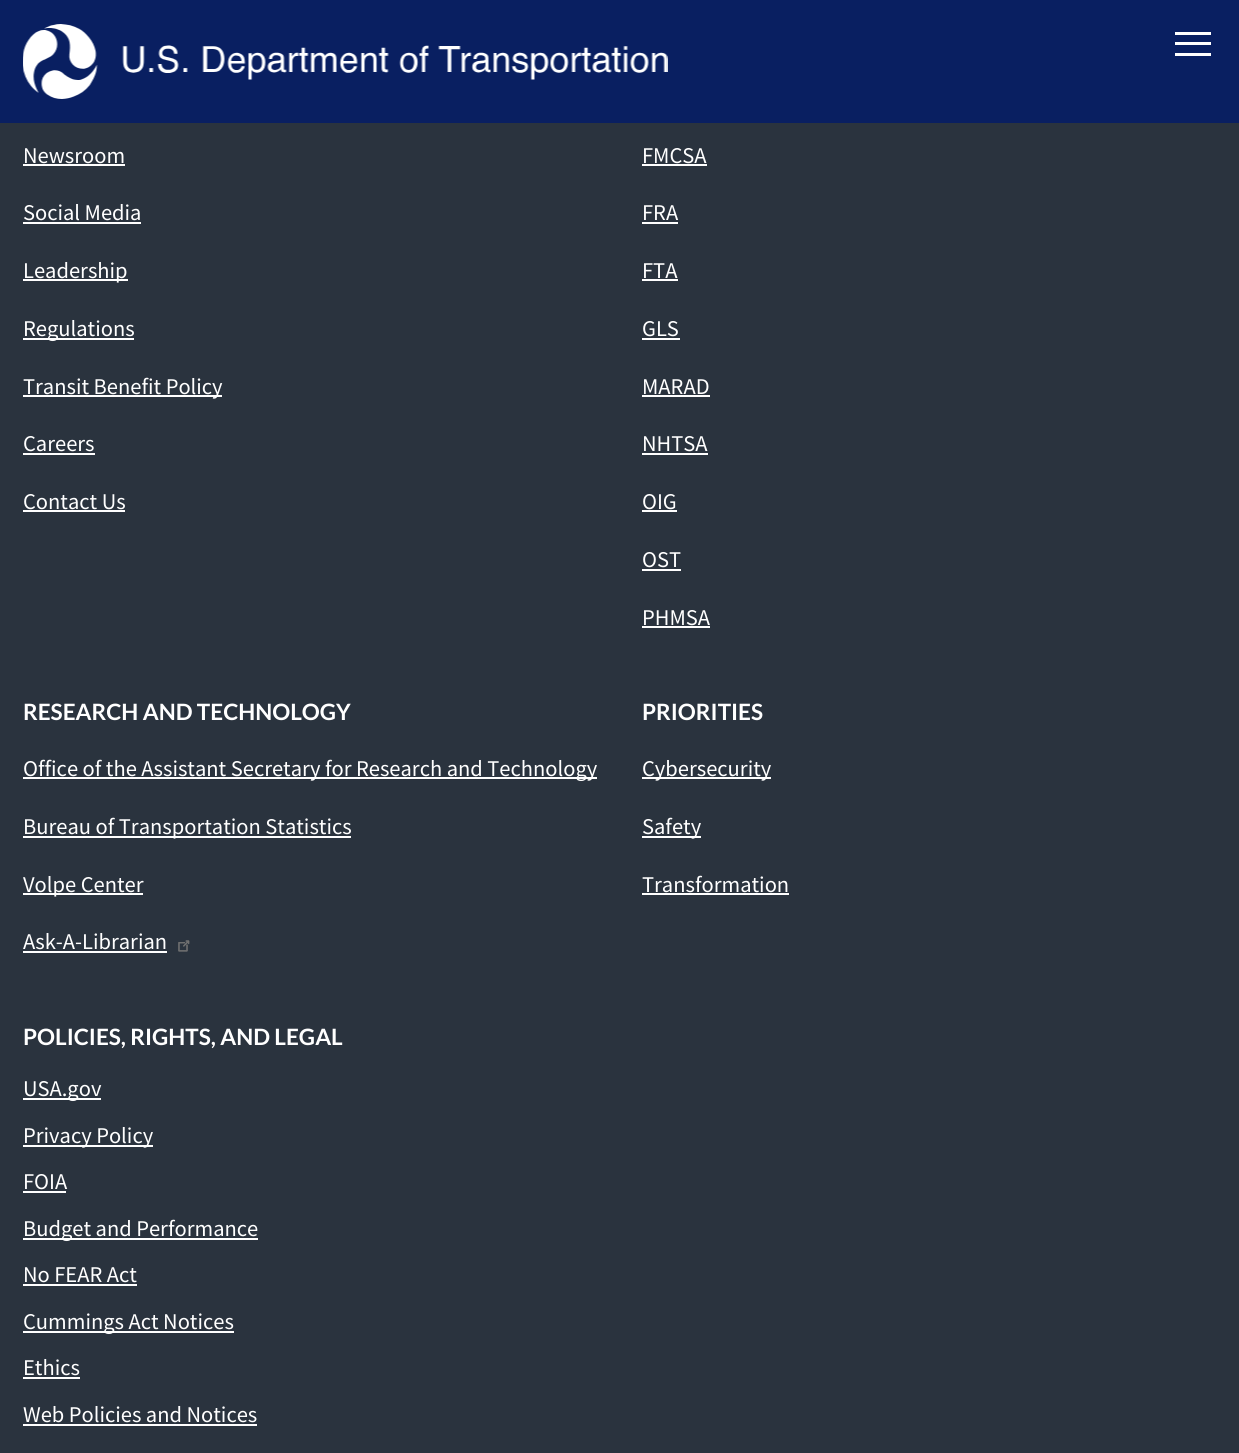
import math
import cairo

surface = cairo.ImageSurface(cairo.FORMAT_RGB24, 1239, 1453)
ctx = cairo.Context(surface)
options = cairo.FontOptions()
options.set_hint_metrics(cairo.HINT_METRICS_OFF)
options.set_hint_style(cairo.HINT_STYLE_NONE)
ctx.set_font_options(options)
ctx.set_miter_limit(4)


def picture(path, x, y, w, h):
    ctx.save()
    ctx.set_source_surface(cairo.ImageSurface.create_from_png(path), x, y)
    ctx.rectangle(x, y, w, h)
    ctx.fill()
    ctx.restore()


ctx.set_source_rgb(0.165, 0.2, 0.243)
ctx.paint()
ctx.set_source_rgb(0.039, 0.122, 0.38)
ctx.rectangle(0, 0, 1239, 123)
ctx.fill()
picture("img1.png", 23, 24, 645, 75)
ctx.set_source_rgb(1, 1, 1)
ctx.rectangle(1175, 32, 36, 3)
ctx.fill()
ctx.rectangle(1175, 42, 36, 3)
ctx.fill()
ctx.rectangle(1175, 53, 36, 3)
ctx.fill()
ctx.select_font_face("Source Sans Pro")
ctx.set_font_size(22.5)
ctx.move_to(23, 163)
ctx.show_text("Newsroom")
ctx.rectangle(23, 164, 102, 2)
ctx.fill()
ctx.move_to(23, 220)
ctx.show_text("Social Media")
ctx.rectangle(23, 222, 118, 2)
ctx.fill()
ctx.rectangle(23, 279, 105, 2)
ctx.fill()
ctx.move_to(23, 278)
ctx.show_text("Leadership")
ctx.rectangle(23, 338, 111, 2)
ctx.fill()
ctx.move_to(23, 336)
ctx.show_text("Regulations")
ctx.rectangle(23, 395, 199, 2)
ctx.fill()
ctx.move_to(23, 394)
ctx.show_text("Transit Benefit Policy")
ctx.move_to(23, 451)
ctx.show_text("Careers")
ctx.rectangle(23, 453, 72, 2)
ctx.fill()
ctx.move_to(23, 509)
ctx.show_text("Contact Us")
ctx.rectangle(23, 510, 102, 2)
ctx.fill()
ctx.move_to(642, 163)
ctx.show_text("FMCSA")
ctx.rectangle(642, 164, 65, 2)
ctx.fill()
ctx.move_to(642, 220)
ctx.show_text("FRA")
ctx.rectangle(642, 222, 36, 2)
ctx.fill()
ctx.move_to(642, 278)
ctx.show_text("FTA")
ctx.rectangle(642, 279, 36, 2)
ctx.fill()
ctx.move_to(642, 336)
ctx.show_text("GLS")
ctx.rectangle(642, 338, 38, 2)
ctx.fill()
ctx.move_to(642, 394)
ctx.show_text("MARAD")
ctx.rectangle(642, 395, 68, 2)
ctx.fill()
ctx.move_to(642, 451)
ctx.show_text("NHTSA")
ctx.rectangle(642, 453, 66, 2)
ctx.fill()
ctx.move_to(642, 509)
ctx.show_text("OIG")
ctx.rectangle(642, 510, 35, 2)
ctx.fill()
ctx.move_to(642, 567)
ctx.show_text("OST")
ctx.rectangle(642, 569, 39, 2)
ctx.fill()
ctx.move_to(642, 625)
ctx.show_text("PHMSA")
ctx.rectangle(642, 626, 68, 2)
ctx.fill()
ctx.select_font_face("Lato", cairo.FONT_SLANT_NORMAL, cairo.FONT_WEIGHT_BOLD)
ctx.move_to(23, 720)
ctx.show_text("RESEARCH AND TECHNOLOGY")
ctx.rectangle(23, 777, 574, 2)
ctx.fill()
ctx.select_font_face("Source Sans Pro")
ctx.move_to(23, 776)
ctx.show_text("Office of the Assistant Secretary for Research and Technology")
ctx.rectangle(23, 836, 328, 2)
ctx.fill()
ctx.move_to(23, 834)
ctx.show_text("Bureau of Transportation Statistics")
ctx.rectangle(23, 893, 120, 2)
ctx.fill()
ctx.move_to(23, 892)
ctx.show_text("Volpe Center")
ctx.move_to(23, 949)
ctx.show_text("Ask-A-Librarian")
ctx.rectangle(23, 951, 144, 2)
ctx.fill()
picture("img2.png", 178, 940, 12, 12)
ctx.select_font_face("Lato", cairo.FONT_SLANT_NORMAL, cairo.FONT_WEIGHT_BOLD)
ctx.move_to(642, 720)
ctx.show_text("PRIORITIES")
ctx.rectangle(642, 777, 129, 2)
ctx.fill()
ctx.select_font_face("Source Sans Pro")
ctx.move_to(642, 776)
ctx.show_text("Cybersecurity")
ctx.rectangle(642, 836, 59, 2)
ctx.fill()
ctx.move_to(642, 834)
ctx.show_text("Safety")
ctx.move_to(642, 892)
ctx.show_text("Transformation")
ctx.rectangle(642, 893, 147, 2)
ctx.fill()
ctx.select_font_face("Lato", cairo.FONT_SLANT_NORMAL, cairo.FONT_WEIGHT_BOLD)
ctx.move_to(23, 1045)
ctx.show_text("POLICIES, RIGHTS, AND LEGAL")
ctx.rectangle(23, 1098, 78, 2)
ctx.fill()
ctx.select_font_face("Source Sans Pro")
ctx.move_to(23, 1096)
ctx.show_text("USA.gov")
ctx.rectangle(23, 1145, 130, 2)
ctx.fill()
ctx.move_to(23, 1143)
ctx.show_text("Privacy Policy")
ctx.move_to(23, 1189)
ctx.show_text("FOIA")
ctx.rectangle(23, 1191, 43, 2)
ctx.fill()
ctx.rectangle(23, 1238, 235, 2)
ctx.fill()
ctx.move_to(23, 1236)
ctx.show_text("Budget and Performance")
ctx.move_to(23, 1282)
ctx.show_text("No FEAR Act")
ctx.rectangle(23, 1284, 114, 2)
ctx.fill()
ctx.rectangle(23, 1331, 211, 2)
ctx.fill()
ctx.move_to(23, 1329)
ctx.show_text("Cummings Act Notices")
ctx.move_to(23, 1375)
ctx.show_text("Ethics")
ctx.rectangle(23, 1377, 57, 2)
ctx.fill()
ctx.move_to(23, 1422)
ctx.show_text("Web Policies and Notices")
ctx.rectangle(23, 1424, 234, 2)
ctx.fill()
surface.write_to_png("page.png")
